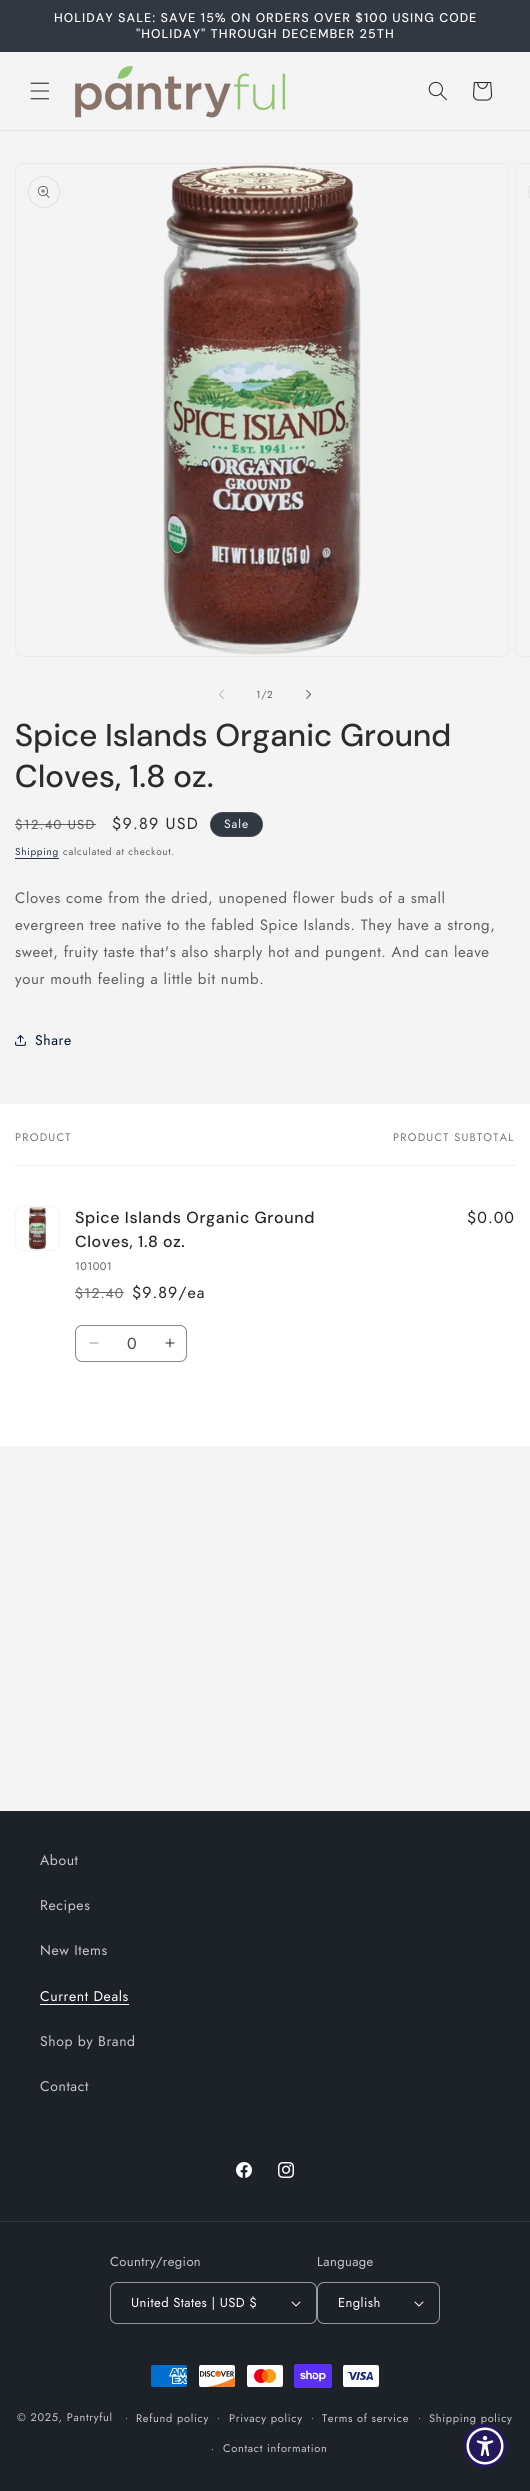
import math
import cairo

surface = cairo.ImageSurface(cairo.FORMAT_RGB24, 530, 2491)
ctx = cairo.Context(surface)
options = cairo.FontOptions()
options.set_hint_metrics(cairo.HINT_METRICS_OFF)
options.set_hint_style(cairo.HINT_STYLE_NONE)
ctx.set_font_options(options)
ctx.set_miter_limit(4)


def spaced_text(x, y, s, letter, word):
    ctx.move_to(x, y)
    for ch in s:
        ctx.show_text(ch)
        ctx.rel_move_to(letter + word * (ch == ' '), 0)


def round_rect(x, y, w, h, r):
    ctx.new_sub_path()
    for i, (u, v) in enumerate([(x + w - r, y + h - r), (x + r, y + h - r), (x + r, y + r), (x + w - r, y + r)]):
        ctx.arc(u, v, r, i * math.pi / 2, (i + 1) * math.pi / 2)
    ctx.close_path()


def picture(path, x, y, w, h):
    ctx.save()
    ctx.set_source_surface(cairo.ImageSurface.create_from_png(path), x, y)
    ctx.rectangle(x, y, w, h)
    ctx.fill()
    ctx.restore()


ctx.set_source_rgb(0.957, 0.957, 0.957)
ctx.paint()
ctx.set_source_rgb(0.196, 0.22, 0.255)
ctx.rectangle(0, 0, 530, 52)
ctx.fill()
ctx.select_font_face("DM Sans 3 Medium")
ctx.set_font_size(12.6)
ctx.set_source_rgb(1, 1, 1)
spaced_text(54, 22, "HOLIDAY SALE: SAVE 15% ON ORDERS OVER $100 USING CODE", 1, 0)
spaced_text(136, 38, "\"HOLIDAY\" THROUGH DECEMBER 25TH", 1, 0)
ctx.set_source_rgb(0.894, 0.894, 0.894)
ctx.rectangle(0, 130, 530, 1)
ctx.fill()
picture("img1.png", 30, 82, 20, 18)
picture("img2.png", 75, 65, 211, 53)
picture("img3.png", 428, 81, 19, 20)
picture("img4.png", 473, 82, 20, 19)
round_rect(15.5, 163.5, 493, 493, 7.5)
ctx.set_source_rgb(0.918, 0.918, 0.918)
ctx.set_line_width(1)
ctx.stroke()
ctx.arc(44, 192, 15.5, 0, 2 * math.pi)
ctx.set_source_rgb(0.878, 0.878, 0.878)
ctx.stroke()
picture("img5.png", 38, 186, 12, 12)
picture("img6.png", 163, 165, 198, 490)
round_rect(515.5, 163.5, 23, 493, 7.5)
ctx.set_source_rgb(0.918, 0.918, 0.918)
ctx.stroke()
round_rect(528.5, 176.5, 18, 31, 15.5)
ctx.set_source_rgb(0.878, 0.878, 0.878)
ctx.stroke()
picture("img7.png", 219, 690, 5, 9)
ctx.select_font_face("Jost")
ctx.set_font_size(10)
ctx.set_source_rgb(0.365, 0.369, 0.373)
spaced_text(256, 698, "1/2", 0.7, 0)
picture("img8.png", 306, 689, 6, 10)
ctx.select_font_face("DM Sans Medium")
ctx.set_font_size(31.5)
ctx.set_source_rgb(0.169, 0.173, 0.176)
spaced_text(15, 746, "Spice Islands Organic Ground", 0.6, 0)
spaced_text(15, 787, "Cloves, 1.8 oz.", 0.6, 0)
ctx.select_font_face("Jost")
ctx.set_font_size(13)
ctx.set_source_rgb(0.365, 0.369, 0.373)
spaced_text(15, 829, "$12.40 USD", 1.25, 0)
ctx.set_source_rgba(0.169, 0.173, 0.176, 0.75)
ctx.rectangle(15, 824, 81, 1)
ctx.fill()
ctx.set_font_size(16)
ctx.set_source_rgb(0.169, 0.173, 0.176)
spaced_text(112, 829, "$9.89 USD", 1.25, 0)
ctx.set_source_rgb(0.196, 0.22, 0.255)
round_rect(210, 812, 53, 25, 12.5)
ctx.fill()
round_rect(210.5, 812.5, 52, 24, 12)
ctx.set_source_rgba(1, 1, 1, 0.1)
ctx.stroke()
ctx.set_font_size(12)
ctx.set_source_rgb(1, 1, 1)
spaced_text(224, 828, "Sale", 1, 0)
ctx.set_font_size(10)
ctx.set_source_rgb(0.145, 0.2, 0.278)
spaced_text(15, 855, "Shipping", 0.7, 0)
ctx.rectangle(15, 858, 44, 1)
ctx.fill()
ctx.set_source_rgb(0.365, 0.369, 0.373)
spaced_text(63, 855, "calculated at checkout.", 0.7, 0)
ctx.set_font_size(15)
spaced_text(15, 903, "Cloves come from the dried, unopened flower buds of a small", 0.6, 0)
spaced_text(15, 930, "evergreen tree native to the fabled Spice Islands. They have a strong,", 0.6, 0)
spaced_text(15, 957, "sweet, fruity taste that's also sharply hot and pungent. And can leave", 0.6, 0)
spaced_text(15, 984, "your mouth feeling a little bit numb.", 0.6, 0)
picture("img9.png", 15, 1035, 11, 11)
ctx.set_font_size(14)
ctx.set_source_rgb(0, 0.067, 0.157)
spaced_text(35, 1045, "Share", 0.6, 0)
ctx.set_source_rgb(1, 1, 1)
ctx.rectangle(0, 1104, 530, 342)
ctx.fill()
ctx.set_source_rgb(0.933, 0.933, 0.933)
ctx.rectangle(15, 1165, 500, 1)
ctx.fill()
ctx.set_font_size(11)
ctx.set_source_rgb(0.459, 0.459, 0.459)
spaced_text(15, 1141, "PRODUCT", 1.25, 0)
spaced_text(393, 1141, "PRODUCT SUBTOTAL", 1.25, 0)
round_rect(15.5, 1206.5, 44, 44, 7.5)
ctx.set_source_rgb(0.957, 0.957, 0.957)
ctx.stroke()
picture("img10.png", 28, 1207, 19, 43)
ctx.select_font_face("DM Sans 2 Medium")
ctx.set_font_size(16)
ctx.set_source_rgb(0.149, 0.149, 0.149)
spaced_text(75, 1223, "Spice Islands Organic Ground", 0.6, 0)
spaced_text(75, 1247, "Cloves, 1.8 oz.", 0.6, 0)
ctx.select_font_face("Jost")
ctx.set_font_size(11)
ctx.set_source_rgb(0.365, 0.369, 0.373)
spaced_text(75, 1270, "101001", 0.4, 0)
ctx.set_font_size(14)
ctx.set_source_rgb(0.404, 0.404, 0.404)
spaced_text(75, 1298, "$12.40", 1, 0)
ctx.rectangle(75, 1292, 49, 1)
ctx.fill()
ctx.set_font_size(16)
ctx.set_source_rgb(0.149, 0.149, 0.149)
spaced_text(132, 1298, "$9.89/ea", 1, 0)
spaced_text(467, 1223, "$0.00", 1, 0)
picture("img11.png", 89, 1342, 10, 2)
picture("img12.png", 165, 1338, 10, 10)
round_rect(75.5, 1325.5, 111, 36, 6.5)
ctx.set_source_rgb(0.533, 0.533, 0.533)
ctx.stroke()
ctx.set_source_rgb(0.278, 0.278, 0.278)
ctx.move_to(127, 1349)
ctx.show_text("0")
ctx.set_source_rgb(0.11, 0.133, 0.157)
ctx.rectangle(0, 1811, 530, 680)
ctx.fill()
ctx.set_font_size(14)
ctx.set_source_rgb(0.776, 0.784, 0.788)
spaced_text(40, 1865, "About", 0.6, 0)
spaced_text(40, 1910, "Recipes", 0.6, 0)
spaced_text(40, 1955, "New Items", 0.6, 0)
ctx.set_source_rgb(1, 1, 1)
spaced_text(40, 2001, "Current Deals", 0.6, 0)
ctx.rectangle(40, 2004, 89, 1)
ctx.fill()
ctx.set_source_rgb(0.776, 0.784, 0.788)
spaced_text(40, 2046, "Shop by Brand", 0.6, 0)
spaced_text(40, 2091, "Contact", 0.6, 0)
picture("img13.png", 236, 2162, 16, 16)
picture("img14.png", 278, 2162, 16, 16)
ctx.set_source_rgb(0.18, 0.204, 0.224)
ctx.rectangle(0, 2221, 530, 1)
ctx.fill()
ctx.set_font_size(13)
ctx.set_source_rgb(0.776, 0.784, 0.788)
spaced_text(110, 2266, "Country/region", 0.4, 0)
picture("img15.png", 291, 2301, 10, 6)
round_rect(110.5, 2282.5, 206, 41, 6.5)
ctx.set_source_rgb(0.6, 0.612, 0.62)
ctx.stroke()
ctx.set_source_rgb(1, 1, 1)
spaced_text(131, 2307, "United States | USD $", 0.4, 0)
ctx.set_source_rgb(0.776, 0.784, 0.788)
spaced_text(317, 2266, "Language", 0.4, 0)
picture("img15.png", 414, 2301, 10, 6)
round_rect(317.5, 2282.5, 122, 41, 6.5)
ctx.set_source_rgb(0.6, 0.612, 0.62)
ctx.stroke()
ctx.set_source_rgb(1, 1, 1)
spaced_text(338, 2307, "English", 0.4, 0)
picture("img16.png", 151, 2365, 36, 22)
picture("img17.png", 199, 2365, 36, 22)
picture("img18.png", 247, 2365, 36, 22)
picture("img19.png", 294, 2364, 38, 24)
picture("img20.png", 343, 2365, 36, 22)
ctx.set_font_size(11)
ctx.set_source_rgb(0.776, 0.784, 0.788)
spaced_text(17, 2421, "© 2025, Pantryful", 0.7, 0)
ctx.set_font_size(10)
spaced_text(125, 2421, "·", 0.7, 0)
ctx.set_font_size(11)
spaced_text(136, 2422, "Refund policy", 0.7, 0)
ctx.set_font_size(10)
spaced_text(217, 2421, "·", 0.7, 0)
ctx.set_font_size(11)
spaced_text(229, 2422, "Privacy policy", 0.7, 0)
ctx.set_font_size(10)
spaced_text(311, 2421, "·", 0.7, 0)
ctx.set_font_size(11)
spaced_text(322, 2422, "Terms of service", 0.7, 0)
ctx.set_font_size(10)
spaced_text(418, 2421, "·", 0.7, 0)
ctx.set_font_size(11)
spaced_text(429, 2422, "Shipping policy", 0.7, 0)
ctx.set_font_size(10)
spaced_text(211, 2452, "·", 0.7, 0)
ctx.set_font_size(11)
spaced_text(223, 2452, "Contact information", 0.7, 0)
ctx.set_source_rgb(0.137, 0.094, 0.361)
ctx.new_path()
ctx.arc(485, 2446, 22, 0, 2 * math.pi)
ctx.fill()
ctx.set_source_rgb(1, 1, 1)
ctx.arc(485, 2446, 18.5, 0, 2 * math.pi)
ctx.fill()
ctx.set_source_rgb(0.137, 0.094, 0.361)
ctx.arc(485, 2446, 16, 0, 2 * math.pi)
ctx.fill()
picture("img21.png", 476, 2436, 18, 20)
surface.write_to_png("page.png")
